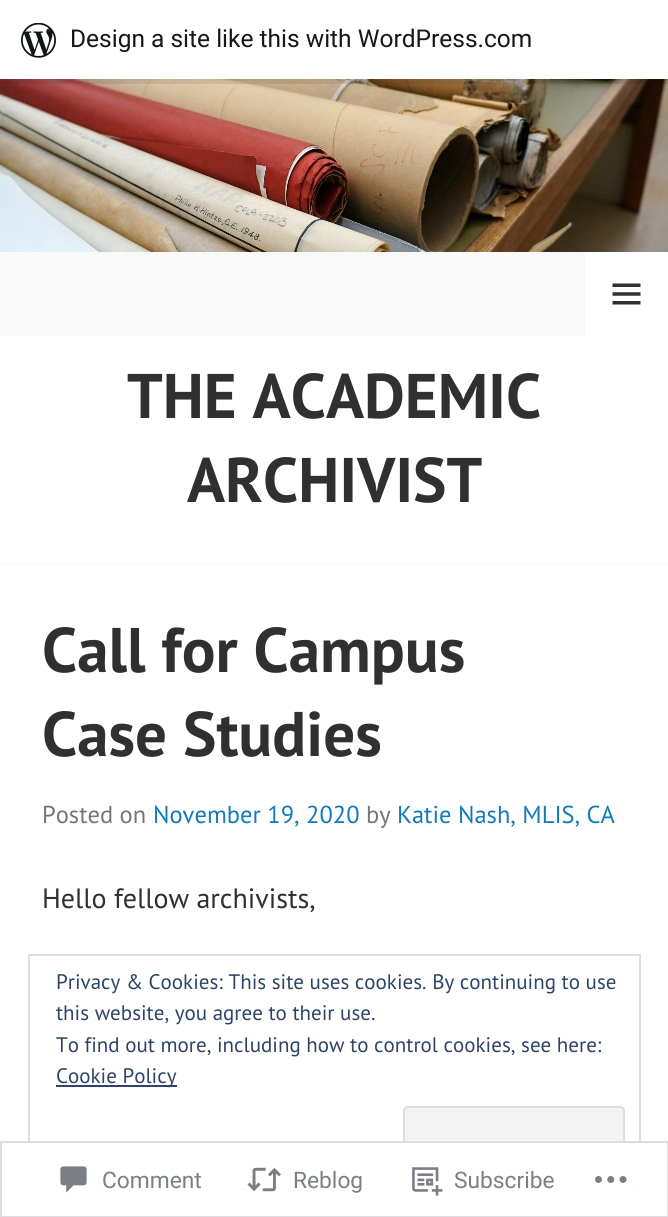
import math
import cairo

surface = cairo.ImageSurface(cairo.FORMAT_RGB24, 668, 1217)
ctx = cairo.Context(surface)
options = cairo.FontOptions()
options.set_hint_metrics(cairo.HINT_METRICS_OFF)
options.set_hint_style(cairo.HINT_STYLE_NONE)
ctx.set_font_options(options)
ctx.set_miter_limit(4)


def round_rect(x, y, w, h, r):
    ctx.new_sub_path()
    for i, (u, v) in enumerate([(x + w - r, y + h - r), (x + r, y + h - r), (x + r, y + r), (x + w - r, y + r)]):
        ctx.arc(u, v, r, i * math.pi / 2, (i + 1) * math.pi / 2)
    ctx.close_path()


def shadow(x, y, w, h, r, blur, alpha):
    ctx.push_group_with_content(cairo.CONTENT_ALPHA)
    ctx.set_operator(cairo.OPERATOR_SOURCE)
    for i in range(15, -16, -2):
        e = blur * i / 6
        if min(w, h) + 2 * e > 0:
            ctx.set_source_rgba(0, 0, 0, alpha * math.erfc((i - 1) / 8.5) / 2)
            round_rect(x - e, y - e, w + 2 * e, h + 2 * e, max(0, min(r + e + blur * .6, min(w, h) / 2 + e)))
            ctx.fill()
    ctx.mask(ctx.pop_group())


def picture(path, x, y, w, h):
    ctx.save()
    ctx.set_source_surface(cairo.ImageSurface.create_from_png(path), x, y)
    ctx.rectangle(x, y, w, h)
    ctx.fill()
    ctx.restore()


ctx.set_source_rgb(1, 1, 1)
ctx.paint()
picture("img2.png", 0, 79, 668, 173)
ctx.set_source_rgb(0, 0, 0)
shadow(0, 2, 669, 79, 0, 2, 0.05)
ctx.set_source_rgba(0, 0, 0, 0.08)
ctx.new_path()
ctx.move_to(2, 79)
ctx.line_to(2, 84)
ctx.line_to(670, 84)
ctx.line_to(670, 5)
ctx.line_to(668, 5)
ctx.line_to(668, 79)
ctx.close_path()
ctx.fill()
ctx.set_source_rgb(1, 1, 1)
ctx.rectangle(0, 0, 668, 79)
ctx.fill()
picture("img1.png", 21, 23, 35, 35)
ctx.select_font_face("Roboto")
ctx.set_font_size(24.5)
ctx.set_source_rgb(0.09, 0.09, 0.09)
ctx.move_to(70, 47)
ctx.show_text("Design a site like this with WordPress.com")
ctx.set_source_rgb(0.973, 0.973, 0.973)
ctx.rectangle(0, 564, 668, 1)
ctx.fill()
ctx.rectangle(0, 252, 585, 84)
ctx.fill()
picture("img3.png", 612, 283, 29, 22)
ctx.select_font_face("PT Sans", cairo.FONT_SLANT_NORMAL, cairo.FONT_WEIGHT_BOLD)
ctx.set_font_size(63)
ctx.set_source_rgb(0.188, 0.188, 0.188)
ctx.move_to(127, 418)
ctx.show_text("THE ACADEMIC")
ctx.move_to(187, 502)
ctx.show_text("ARCHIVIST")
ctx.move_to(42, 672)
ctx.show_text("Call for Campus")
ctx.move_to(42, 756)
ctx.show_text("Case Studies")
ctx.select_font_face("PT Sans")
ctx.set_font_size(24.5)
ctx.set_source_rgb(0.459, 0.459, 0.459)
ctx.move_to(42, 823)
ctx.show_text("Posted on")
ctx.set_source_rgb(0.071, 0.475, 0.745)
ctx.move_to(153, 823)
ctx.show_text("November 19, 2020")
ctx.set_source_rgb(0.459, 0.459, 0.459)
ctx.move_to(366, 823)
ctx.show_text("by")
ctx.set_source_rgb(0.071, 0.475, 0.745)
ctx.move_to(397, 823)
ctx.show_text("Katie Nash, MLIS, CA")
ctx.set_font_size(28)
ctx.set_source_rgb(0.188, 0.188, 0.188)
ctx.move_to(42, 908)
ctx.show_text("Hello fellow archivists,")
ctx.rectangle(29, 955, 611, 234)
ctx.set_source_rgb(0.871, 0.871, 0.871)
ctx.stroke()
ctx.set_font_size(21)
ctx.set_source_rgb(0.18, 0.267, 0.404)
ctx.move_to(56, 989)
ctx.show_text("Privacy & Cookies: This site uses cookies. By continuing to use")
ctx.move_to(56, 1020)
ctx.show_text("this website, you agree to their use.")
ctx.move_to(56, 1052)
ctx.show_text("To find out more, including how to control cookies, see here:")
ctx.rectangle(56, 1085, 121, 2)
ctx.fill()
ctx.move_to(56, 1083)
ctx.show_text("Cookie Policy")
ctx.set_source_rgb(0.953, 0.953, 0.953)
round_rect(404, 1107, 220, 66, 4)
ctx.fill_preserve()
ctx.set_source_rgb(0.871, 0.871, 0.871)
ctx.stroke()
ctx.set_source_rgba(1, 1, 1, 0.98)
ctx.rectangle(28, 1141, 613, 49)
ctx.fill()
ctx.rectangle(1, 1142, 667, 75)
ctx.set_source_rgba(0.863, 0.863, 0.871, 0.98)
ctx.stroke()
picture("img4.png", 60, 1166, 27, 27)
ctx.select_font_face("Roboto")
ctx.set_font_size(22.75)
ctx.set_source_rgb(0.482, 0.498, 0.518)
ctx.move_to(102, 1188)
ctx.show_text("Comment")
picture("img5.png", 247, 1167, 34, 25)
ctx.move_to(293, 1188)
ctx.show_text("Reblog")
picture("img6.png", 412, 1167, 31, 29)
ctx.move_to(454, 1188)
ctx.show_text("Subscribe")
picture("img7.png", 595, 1176, 32, 7)
surface.write_to_png("page.png")
